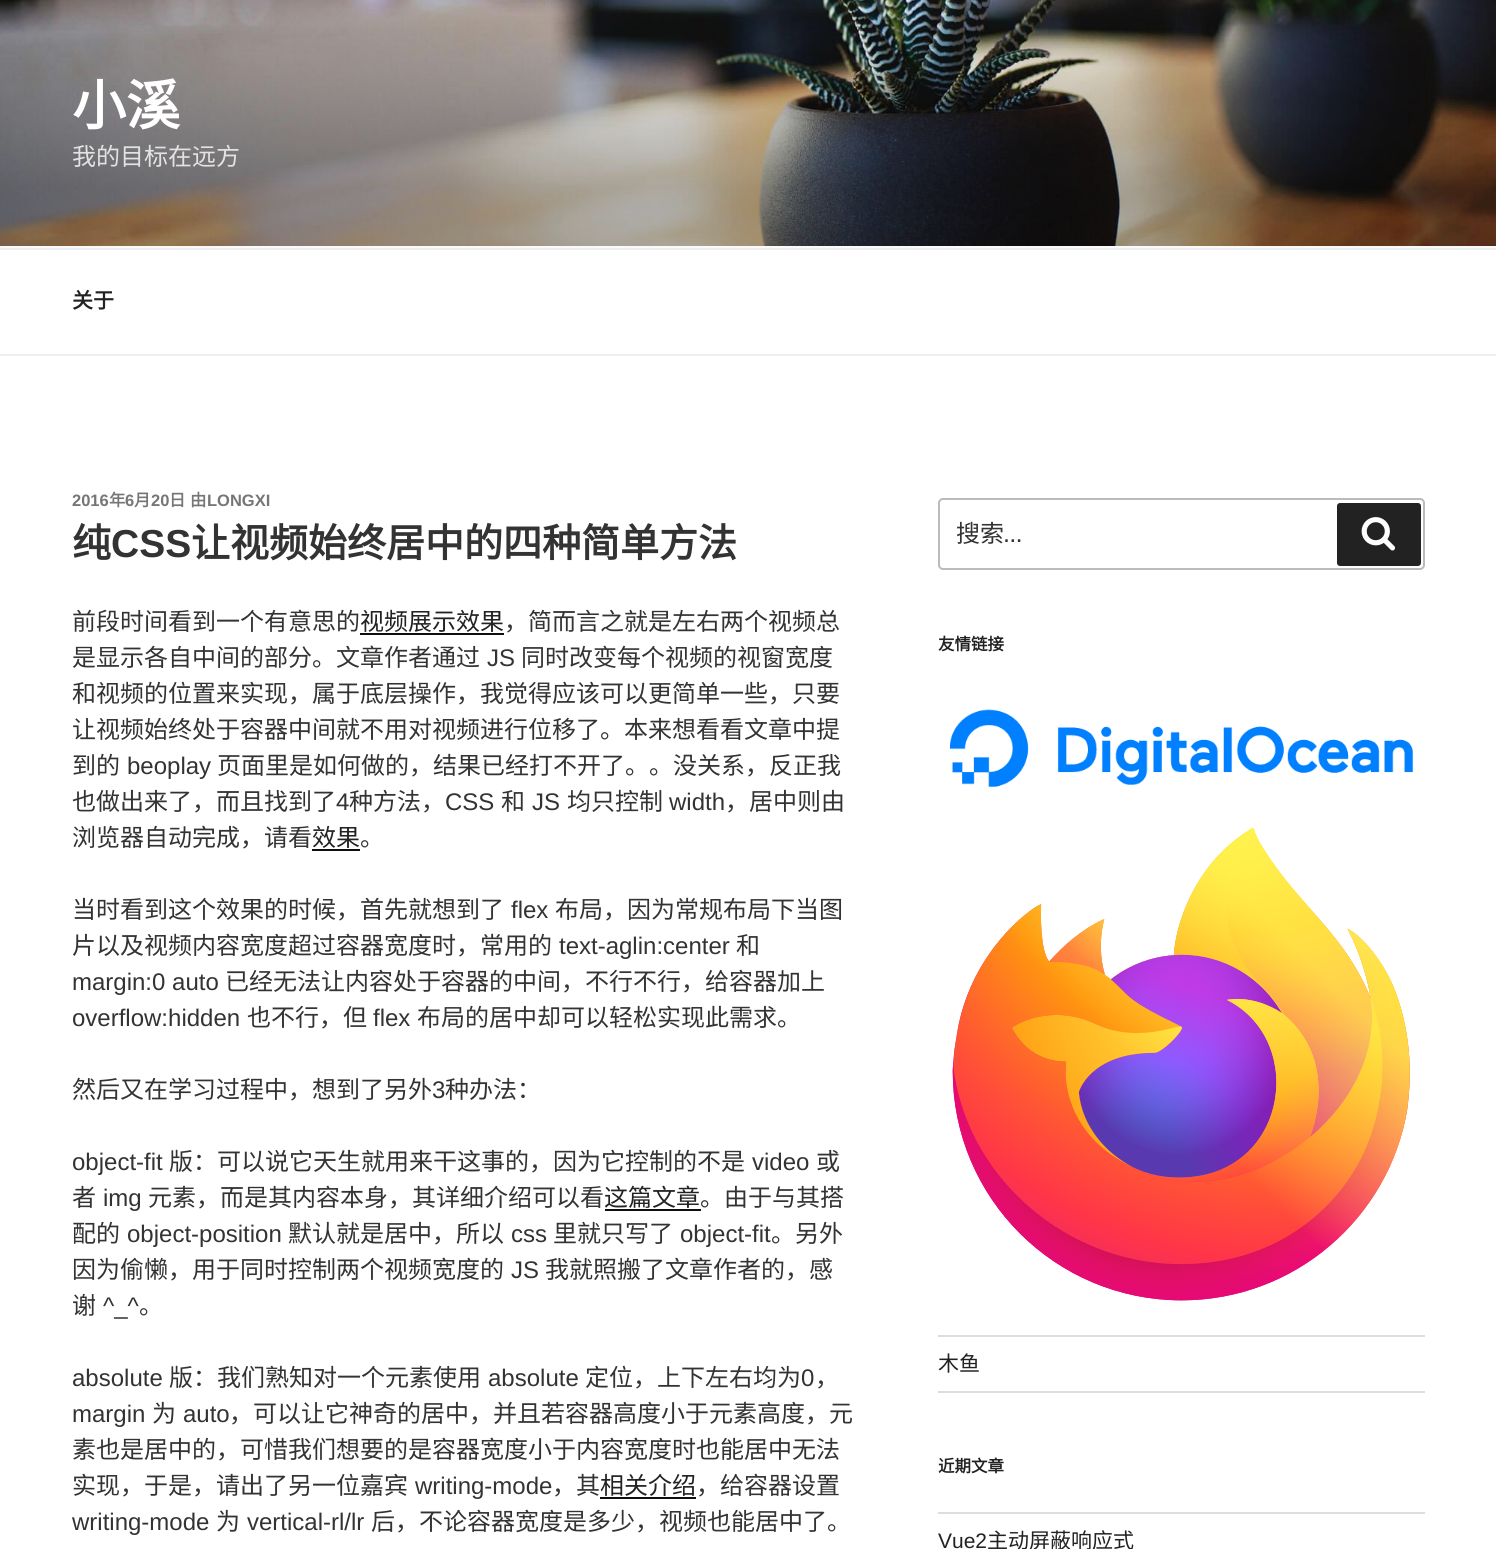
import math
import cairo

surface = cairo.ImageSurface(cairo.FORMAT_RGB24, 1496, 1549)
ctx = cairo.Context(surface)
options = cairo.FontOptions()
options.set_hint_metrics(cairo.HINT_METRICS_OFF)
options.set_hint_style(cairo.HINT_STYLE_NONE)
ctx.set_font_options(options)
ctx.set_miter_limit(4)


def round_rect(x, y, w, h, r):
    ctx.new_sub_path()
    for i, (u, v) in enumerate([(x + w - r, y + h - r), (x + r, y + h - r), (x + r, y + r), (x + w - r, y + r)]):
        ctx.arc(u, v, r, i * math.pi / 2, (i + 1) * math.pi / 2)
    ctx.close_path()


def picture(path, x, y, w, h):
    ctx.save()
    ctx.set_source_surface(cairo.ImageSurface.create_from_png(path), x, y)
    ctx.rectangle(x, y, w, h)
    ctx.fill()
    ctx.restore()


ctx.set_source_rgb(1, 1, 1)
ctx.paint()
ctx.set_source_rgb(0.98, 0.98, 0.98)
ctx.rectangle(0, 246, 1496, 2)
ctx.fill()
picture("img1.png", 0, 0, 1496, 246)
ctx.select_font_face("Noto Sans CJK SC", cairo.FONT_SLANT_NORMAL, cairo.FONT_WEIGHT_BOLD)
ctx.set_font_size(54)
ctx.set_source_rgb(1, 1, 1)
ctx.move_to(72, 125)
ctx.show_text("小溪")
ctx.select_font_face("Noto Sans CJK SC")
ctx.set_font_size(24)
ctx.set_source_rgb(0.89, 0.89, 0.89)
ctx.move_to(72, 165)
ctx.show_text("我的目标在远方")
ctx.set_source_rgb(0.933, 0.933, 0.933)
ctx.rectangle(0, 248, 1496, 2)
ctx.fill()
ctx.rectangle(0, 354, 1496, 2)
ctx.fill()
ctx.select_font_face("Noto Sans CJK SC", cairo.FONT_SLANT_NORMAL, cairo.FONT_WEIGHT_BOLD)
ctx.set_font_size(21)
ctx.set_source_rgb(0.133, 0.133, 0.133)
ctx.move_to(72, 308)
ctx.show_text("关于")
ctx.select_font_face("Liberation Sans", cairo.FONT_SLANT_NORMAL, cairo.FONT_WEIGHT_BOLD)
ctx.set_font_size(16.5)
ctx.set_source_rgb(0.463, 0.463, 0.463)
ctx.move_to(72, 506)
ctx.show_text("2016")
ctx.select_font_face("Noto Sans CJK SC", cairo.FONT_SLANT_NORMAL, cairo.FONT_WEIGHT_BOLD)
ctx.move_to(109, 506)
ctx.show_text("年")
ctx.select_font_face("Liberation Sans", cairo.FONT_SLANT_NORMAL, cairo.FONT_WEIGHT_BOLD)
ctx.move_to(125, 506)
ctx.show_text("6")
ctx.select_font_face("Noto Sans CJK SC", cairo.FONT_SLANT_NORMAL, cairo.FONT_WEIGHT_BOLD)
ctx.move_to(134, 506)
ctx.show_text("月")
ctx.select_font_face("Liberation Sans", cairo.FONT_SLANT_NORMAL, cairo.FONT_WEIGHT_BOLD)
ctx.move_to(151, 506)
ctx.show_text("20")
ctx.select_font_face("Noto Sans CJK SC", cairo.FONT_SLANT_NORMAL, cairo.FONT_WEIGHT_BOLD)
ctx.move_to(169, 506)
ctx.show_text("日")
ctx.move_to(190, 506)
ctx.show_text("由")
ctx.select_font_face("Liberation Sans", cairo.FONT_SLANT_NORMAL, cairo.FONT_WEIGHT_BOLD)
ctx.move_to(207, 506)
ctx.show_text("LONGXI")
ctx.select_font_face("Noto Sans CJK SC", cairo.FONT_SLANT_NORMAL, cairo.FONT_WEIGHT_BOLD)
ctx.set_font_size(39)
ctx.set_source_rgb(0.2, 0.2, 0.2)
ctx.move_to(72, 557)
ctx.show_text("纯")
ctx.select_font_face("Liberation Sans", cairo.FONT_SLANT_NORMAL, cairo.FONT_WEIGHT_BOLD)
ctx.move_to(111, 557)
ctx.show_text("CSS")
ctx.select_font_face("Noto Sans CJK SC", cairo.FONT_SLANT_NORMAL, cairo.FONT_WEIGHT_BOLD)
ctx.move_to(191, 557)
ctx.show_text("让视频始终居中的四种简单方法")
ctx.select_font_face("Noto Sans CJK SC")
ctx.set_font_size(24)
ctx.move_to(72, 630)
ctx.show_text("前段时间看到一个有意思的")
ctx.set_source_rgb(0.133, 0.133, 0.133)
ctx.move_to(360, 630)
ctx.show_text("视频展示效果")
ctx.set_source_rgb(0.059, 0.059, 0.059)
ctx.rectangle(360, 633, 144, 2)
ctx.fill()
ctx.set_source_rgb(0.2, 0.2, 0.2)
ctx.move_to(504, 630)
ctx.show_text("，简而言之就是左右两个视频总")
ctx.move_to(72, 666)
ctx.show_text("是显示各自中间的部分。文章作者通过")
ctx.select_font_face("Liberation Sans")
ctx.move_to(487, 666)
ctx.show_text("JS")
ctx.select_font_face("Noto Sans CJK SC")
ctx.move_to(521, 666)
ctx.show_text("同时改变每个视频的视窗宽度")
ctx.move_to(72, 702)
ctx.show_text("和视频的位置来实现，属于底层操作，我觉得应该可以更简单一些，只要")
ctx.move_to(72, 738)
ctx.show_text("让视频始终处于容器中间就不用对视频进行位移了。本来想看看文章中提")
ctx.move_to(72, 774)
ctx.show_text("到的")
ctx.select_font_face("Liberation Sans")
ctx.move_to(127, 774)
ctx.show_text("beoplay")
ctx.select_font_face("Noto Sans CJK SC")
ctx.move_to(217, 774)
ctx.show_text("页面里是如何做的，结果已经打不开了。。没关系，反正我")
ctx.move_to(72, 810)
ctx.show_text("也做出来了，而且找到了")
ctx.select_font_face("Liberation Sans")
ctx.move_to(336, 810)
ctx.show_text("4")
ctx.select_font_face("Noto Sans CJK SC")
ctx.move_to(349, 810)
ctx.show_text("种方法，")
ctx.select_font_face("Liberation Sans")
ctx.move_to(445, 810)
ctx.show_text("CSS")
ctx.select_font_face("Noto Sans CJK SC")
ctx.move_to(501, 810)
ctx.show_text("和")
ctx.select_font_face("Liberation Sans")
ctx.move_to(532, 810)
ctx.show_text("JS")
ctx.select_font_face("Noto Sans CJK SC")
ctx.move_to(567, 810)
ctx.show_text("均只控制")
ctx.select_font_face("Liberation Sans")
ctx.move_to(669, 810)
ctx.show_text("width")
ctx.select_font_face("Noto Sans CJK SC")
ctx.move_to(725, 810)
ctx.show_text("，居中则由")
ctx.move_to(72, 846)
ctx.show_text("浏览器自动完成，请看")
ctx.set_source_rgb(0.133, 0.133, 0.133)
ctx.move_to(312, 846)
ctx.show_text("效果")
ctx.set_source_rgb(0.059, 0.059, 0.059)
ctx.rectangle(312, 849, 48, 2)
ctx.fill()
ctx.set_source_rgb(0.2, 0.2, 0.2)
ctx.move_to(360, 846)
ctx.show_text("。")
ctx.move_to(72, 918)
ctx.show_text("当时看到这个效果的时候，首先就想到了")
ctx.select_font_face("Liberation Sans")
ctx.move_to(511, 918)
ctx.show_text("flex")
ctx.select_font_face("Noto Sans CJK SC")
ctx.move_to(555, 918)
ctx.show_text("布局，因为常规布局下当图")
ctx.move_to(72, 954)
ctx.show_text("片以及视频内容宽度超过容器宽度时，常用的")
ctx.select_font_face("Liberation Sans")
ctx.move_to(559, 954)
ctx.show_text("text-aglin:center")
ctx.select_font_face("Noto Sans CJK SC")
ctx.move_to(736, 954)
ctx.show_text("和")
ctx.select_font_face("Liberation Sans")
ctx.move_to(72, 990)
ctx.show_text("margin:0 auto")
ctx.select_font_face("Noto Sans CJK SC")
ctx.move_to(225, 990)
ctx.show_text("已经无法让内容处于容器的中间，不行不行，给容器加上")
ctx.select_font_face("Liberation Sans")
ctx.move_to(72, 1026)
ctx.show_text("overflow:hidden")
ctx.select_font_face("Noto Sans CJK SC")
ctx.move_to(247, 1026)
ctx.show_text("也不行，但")
ctx.select_font_face("Liberation Sans")
ctx.move_to(373, 1026)
ctx.show_text("flex")
ctx.select_font_face("Noto Sans CJK SC")
ctx.move_to(417, 1026)
ctx.show_text("布局的居中却可以轻松实现此需求。")
ctx.move_to(72, 1098)
ctx.show_text("然后又在学习过程中，想到了另外")
ctx.select_font_face("Liberation Sans")
ctx.move_to(432, 1098)
ctx.show_text("3")
ctx.select_font_face("Noto Sans CJK SC")
ctx.move_to(445, 1098)
ctx.show_text("种办法：")
ctx.select_font_face("Liberation Sans")
ctx.move_to(72, 1170)
ctx.show_text("object-fit")
ctx.select_font_face("Noto Sans CJK SC")
ctx.move_to(169, 1170)
ctx.show_text("版：可以说它天生就用来干这事的，因为它控制的不是")
ctx.select_font_face("Liberation Sans")
ctx.move_to(752, 1170)
ctx.show_text("video")
ctx.select_font_face("Noto Sans CJK SC")
ctx.move_to(816, 1170)
ctx.show_text("或")
ctx.move_to(72, 1206)
ctx.show_text("者")
ctx.select_font_face("Liberation Sans")
ctx.move_to(103, 1206)
ctx.show_text("img")
ctx.select_font_face("Noto Sans CJK SC")
ctx.move_to(148, 1206)
ctx.show_text("元素，而是其内容本身，其详细介绍可以看")
ctx.set_source_rgb(0.133, 0.133, 0.133)
ctx.move_to(604, 1206)
ctx.show_text("这篇文章")
ctx.set_source_rgb(0.059, 0.059, 0.059)
ctx.rectangle(605, 1209, 96, 2)
ctx.fill()
ctx.set_source_rgb(0.2, 0.2, 0.2)
ctx.move_to(700, 1206)
ctx.show_text("。由于与其搭")
ctx.move_to(72, 1242)
ctx.show_text("配的")
ctx.select_font_face("Liberation Sans")
ctx.move_to(127, 1242)
ctx.show_text("object-position")
ctx.select_font_face("Noto Sans CJK SC")
ctx.move_to(288, 1242)
ctx.show_text("默认就是居中，所以")
ctx.select_font_face("Liberation Sans")
ctx.move_to(511, 1242)
ctx.show_text("css")
ctx.select_font_face("Noto Sans CJK SC")
ctx.move_to(553, 1242)
ctx.show_text("里就只写了")
ctx.select_font_face("Liberation Sans")
ctx.move_to(680, 1242)
ctx.show_text("object-fit")
ctx.select_font_face("Noto Sans CJK SC")
ctx.move_to(771, 1242)
ctx.show_text("。另外")
ctx.move_to(72, 1278)
ctx.show_text("因为偷懒，用于同时控制两个视频宽度的")
ctx.select_font_face("Liberation Sans")
ctx.move_to(511, 1278)
ctx.show_text("JS")
ctx.select_font_face("Noto Sans CJK SC")
ctx.move_to(545, 1278)
ctx.show_text("我就照搬了文章作者的，感")
ctx.move_to(72, 1314)
ctx.show_text("谢")
ctx.select_font_face("Liberation Sans")
ctx.move_to(103, 1314)
ctx.show_text("^_^")
ctx.select_font_face("Noto Sans CJK SC")
ctx.move_to(139, 1314)
ctx.show_text("。")
ctx.select_font_face("Liberation Sans")
ctx.move_to(72, 1386)
ctx.show_text("absolute")
ctx.select_font_face("Noto Sans CJK SC")
ctx.move_to(169, 1386)
ctx.show_text("版：我们熟知对一个元素使用")
ctx.select_font_face("Liberation Sans")
ctx.move_to(488, 1386)
ctx.show_text("absolute")
ctx.select_font_face("Noto Sans CJK SC")
ctx.move_to(585, 1386)
ctx.show_text("定位，上下左右均为")
ctx.select_font_face("Liberation Sans")
ctx.move_to(801, 1386)
ctx.show_text("0")
ctx.select_font_face("Noto Sans CJK SC")
ctx.move_to(815, 1386)
ctx.show_text("，")
ctx.select_font_face("Liberation Sans")
ctx.move_to(72, 1422)
ctx.show_text("margin")
ctx.select_font_face("Noto Sans CJK SC")
ctx.move_to(152, 1422)
ctx.show_text("为")
ctx.select_font_face("Liberation Sans")
ctx.move_to(183, 1422)
ctx.show_text("auto")
ctx.select_font_face("Noto Sans CJK SC")
ctx.move_to(229, 1422)
ctx.show_text("，可以让它神奇的居中，并且若容器高度小于元素高度，元")
ctx.move_to(72, 1458)
ctx.show_text("素也是居中的，可惜我们想要的是容器宽度小于内容宽度时也能居中无法")
ctx.move_to(72, 1494)
ctx.show_text("实现，于是，请出了另一位嘉宾")
ctx.select_font_face("Liberation Sans")
ctx.move_to(415, 1494)
ctx.show_text("writing-mode")
ctx.select_font_face("Noto Sans CJK SC")
ctx.move_to(552, 1494)
ctx.show_text("，其")
ctx.set_source_rgb(0.133, 0.133, 0.133)
ctx.move_to(600, 1494)
ctx.show_text("相关介绍")
ctx.set_source_rgb(0.059, 0.059, 0.059)
ctx.rectangle(600, 1497, 96, 2)
ctx.fill()
ctx.set_source_rgb(0.2, 0.2, 0.2)
ctx.move_to(696, 1494)
ctx.show_text("，给容器设置")
ctx.select_font_face("Liberation Sans")
ctx.move_to(72, 1530)
ctx.show_text("writing-mode")
ctx.select_font_face("Noto Sans CJK SC")
ctx.move_to(216, 1530)
ctx.show_text("为")
ctx.select_font_face("Liberation Sans")
ctx.move_to(247, 1530)
ctx.show_text("vertical-rl/lr")
ctx.select_font_face("Noto Sans CJK SC")
ctx.move_to(371, 1530)
ctx.show_text("后，不论容器宽度是多少，视频也能居中了。")
round_rect(939, 499, 485, 70, 4)
ctx.set_source_rgb(0.733, 0.733, 0.733)
ctx.stroke()
ctx.set_source_rgb(0.2, 0.2, 0.2)
ctx.move_to(956, 542)
ctx.show_text("搜索")
ctx.select_font_face("Libre Franklin")
ctx.move_to(1004, 542)
ctx.show_text("…")
ctx.set_source_rgb(0.133, 0.133, 0.133)
round_rect(1337, 503, 84, 63, 3)
ctx.fill()
picture("img2.png", 1361, 517, 34, 34)
ctx.select_font_face("Noto Sans CJK SC", cairo.FONT_SLANT_NORMAL, cairo.FONT_WEIGHT_BOLD)
ctx.set_font_size(16.5)
ctx.move_to(938, 650)
ctx.show_text("友情链接")
picture("img3.png", 950, 709, 463, 78)
ctx.set_source_rgb(0.867, 0.867, 0.867)
ctx.rectangle(938, 1335, 487, 2)
ctx.fill()
picture("img4.png", 952, 828, 458, 473)
ctx.rectangle(938, 1391, 487, 2)
ctx.fill()
ctx.select_font_face("Noto Sans CJK SC")
ctx.set_font_size(21)
ctx.set_source_rgb(0.133, 0.133, 0.133)
ctx.move_to(938, 1371)
ctx.show_text("木鱼")
ctx.select_font_face("Noto Sans CJK SC", cairo.FONT_SLANT_NORMAL, cairo.FONT_WEIGHT_BOLD)
ctx.set_font_size(16.5)
ctx.move_to(938, 1472)
ctx.show_text("近期文章")
ctx.set_source_rgb(0.867, 0.867, 0.867)
ctx.rectangle(938, 1512, 487, 2)
ctx.fill()
ctx.select_font_face("Liberation Sans")
ctx.set_font_size(21)
ctx.set_source_rgb(0.133, 0.133, 0.133)
ctx.move_to(938, 1548)
ctx.show_text("Vue2")
ctx.select_font_face("Noto Sans CJK SC")
ctx.move_to(987, 1548)
ctx.show_text("主动屏蔽响应式")
surface.write_to_png("page.png")
